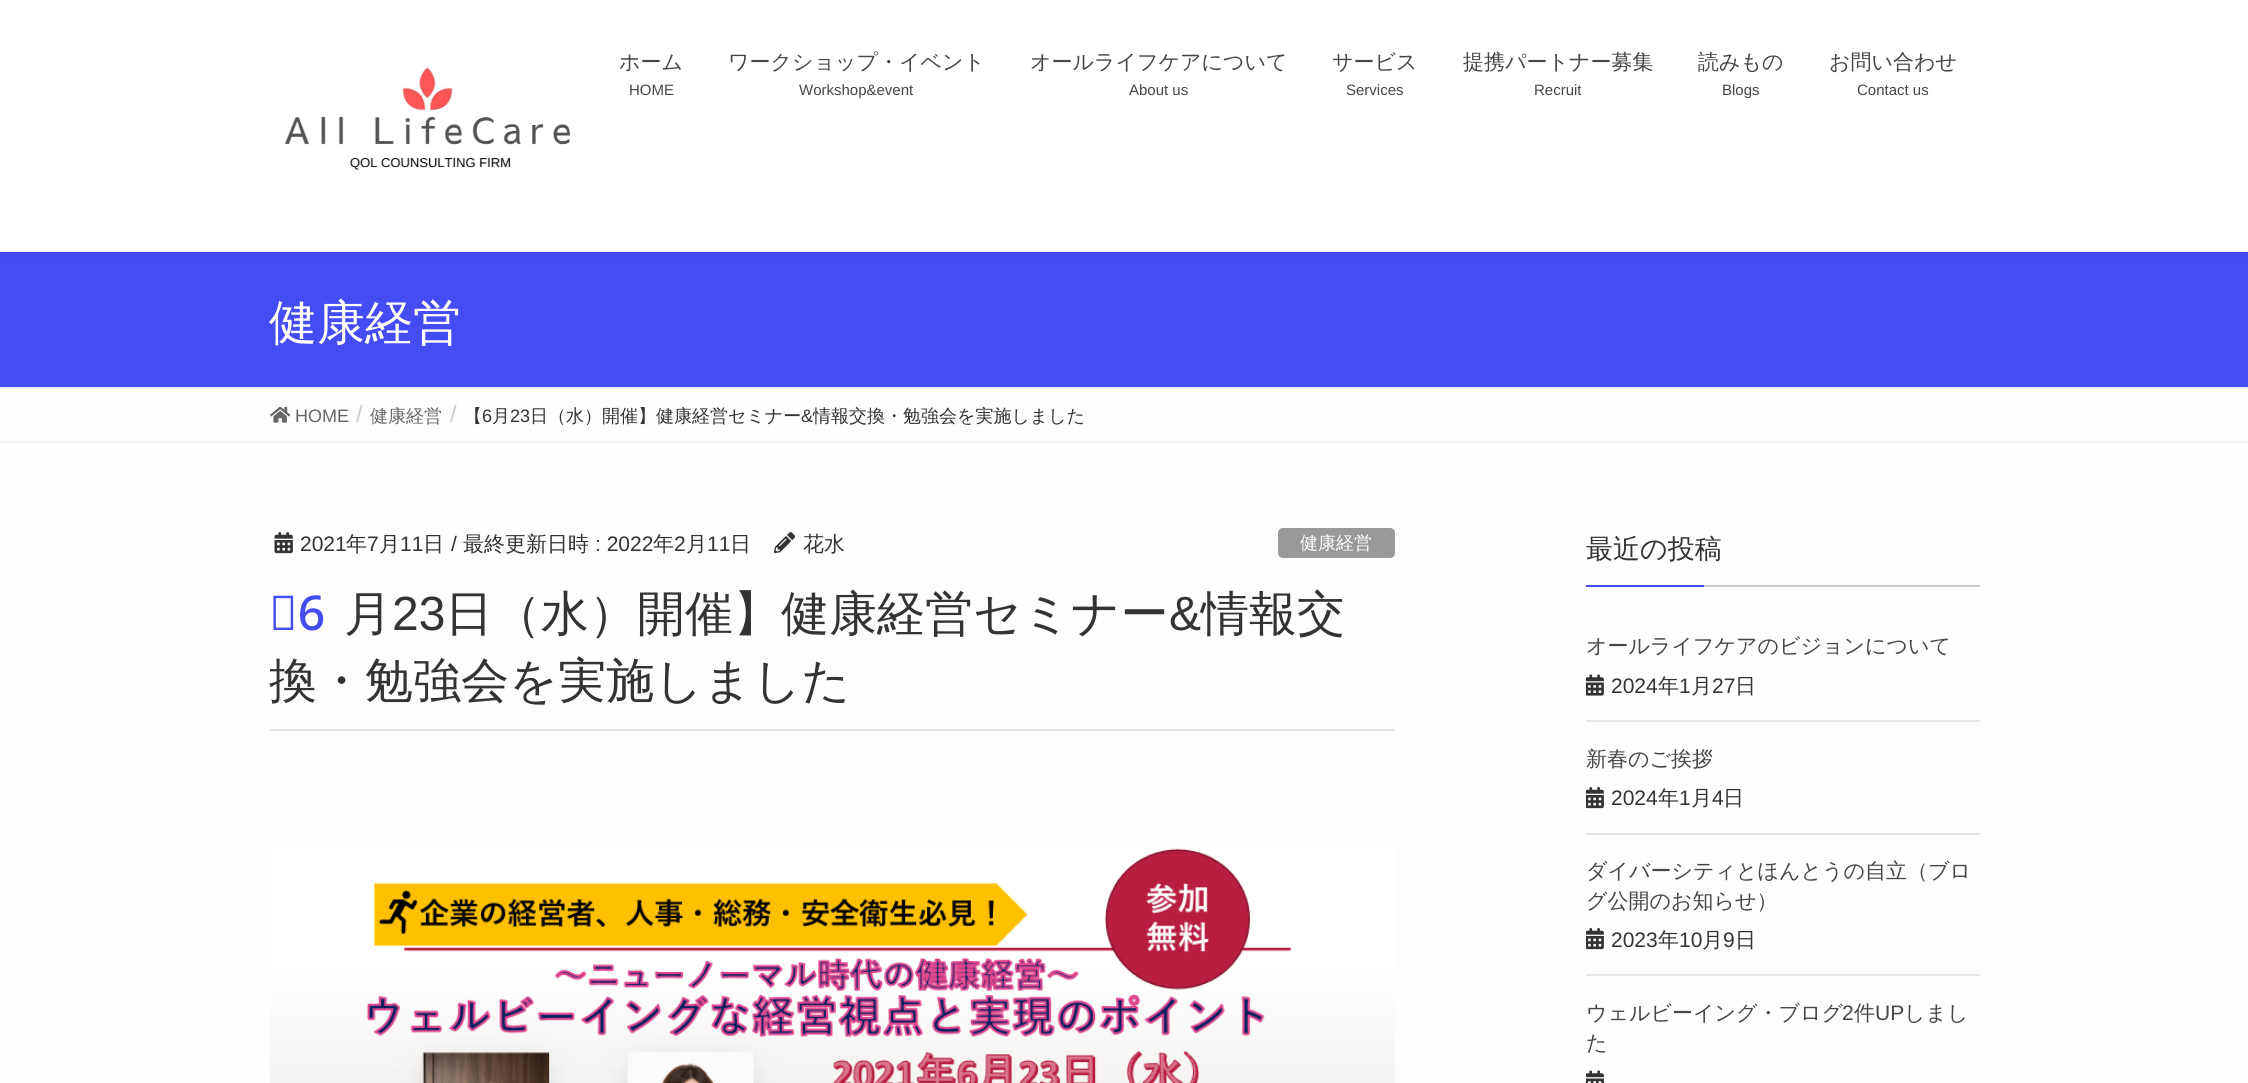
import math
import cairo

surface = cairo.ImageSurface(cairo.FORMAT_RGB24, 2248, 1083)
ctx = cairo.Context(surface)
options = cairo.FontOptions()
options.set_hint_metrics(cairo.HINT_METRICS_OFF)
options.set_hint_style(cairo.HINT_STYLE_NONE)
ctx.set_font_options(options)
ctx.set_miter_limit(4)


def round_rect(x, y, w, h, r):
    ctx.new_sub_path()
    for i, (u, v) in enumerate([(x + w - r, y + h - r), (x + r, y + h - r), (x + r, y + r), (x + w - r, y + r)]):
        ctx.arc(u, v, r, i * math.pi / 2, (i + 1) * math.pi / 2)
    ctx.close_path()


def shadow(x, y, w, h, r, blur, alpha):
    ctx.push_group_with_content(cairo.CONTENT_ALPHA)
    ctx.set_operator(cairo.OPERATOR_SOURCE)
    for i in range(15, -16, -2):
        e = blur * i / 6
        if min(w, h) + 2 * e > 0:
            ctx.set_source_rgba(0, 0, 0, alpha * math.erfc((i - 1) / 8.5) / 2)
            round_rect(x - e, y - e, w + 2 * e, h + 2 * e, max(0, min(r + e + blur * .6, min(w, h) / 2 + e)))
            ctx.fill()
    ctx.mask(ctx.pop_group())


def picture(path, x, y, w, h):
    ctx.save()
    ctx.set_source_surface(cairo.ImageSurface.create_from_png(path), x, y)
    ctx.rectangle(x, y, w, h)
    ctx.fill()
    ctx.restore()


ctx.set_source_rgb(1, 0.988, 0.988)
ctx.paint()
ctx.set_source_rgb(0.267, 0.302, 0.957)
ctx.rectangle(0, 252, 2248, 135)
ctx.fill()
ctx.set_source_rgb(0, 0, 0)
shadow(0, 2, 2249, 252, 0, 2, 0.1)
ctx.set_source_rgb(1, 1, 1)
ctx.rectangle(0, 0, 2248, 252)
ctx.fill()
picture("img1.png", 284, 66, 287, 104)
ctx.select_font_face("WenQuanYi Zen Hei Medium")
ctx.set_font_size(21)
ctx.set_source_rgb(0.275, 0.275, 0.275)
ctx.move_to(619, 69)
ctx.show_text("ホーム")
ctx.select_font_face("Liberation Sans")
ctx.set_font_size(15)
ctx.move_to(629, 95)
ctx.show_text("HOME")
ctx.select_font_face("WenQuanYi Zen Hei Medium")
ctx.set_font_size(21)
ctx.move_to(728, 69)
ctx.show_text("ワークショップ・イベント")
ctx.select_font_face("Liberation Sans")
ctx.set_font_size(15)
ctx.move_to(799, 95)
ctx.show_text("Workshop&event")
ctx.select_font_face("WenQuanYi Zen Hei Medium")
ctx.set_font_size(21)
ctx.move_to(1030, 69)
ctx.show_text("オールライフケアについて")
ctx.select_font_face("Liberation Sans")
ctx.set_font_size(15)
ctx.move_to(1129, 95)
ctx.show_text("About us")
ctx.select_font_face("WenQuanYi Zen Hei Medium")
ctx.set_font_size(21)
ctx.move_to(1332, 69)
ctx.show_text("サービス")
ctx.select_font_face("Liberation Sans")
ctx.set_font_size(15)
ctx.move_to(1346, 95)
ctx.show_text("Services")
ctx.select_font_face("WenQuanYi Zen Hei Medium")
ctx.set_font_size(21)
ctx.move_to(1463, 69)
ctx.show_text("提携パートナー募集")
ctx.select_font_face("Liberation Sans")
ctx.set_font_size(15)
ctx.move_to(1534, 95)
ctx.show_text("Recruit")
ctx.select_font_face("WenQuanYi Zen Hei Medium")
ctx.set_font_size(21)
ctx.move_to(1698, 69)
ctx.show_text("読みもの")
ctx.select_font_face("Liberation Sans")
ctx.set_font_size(15)
ctx.move_to(1722, 95)
ctx.show_text("Blogs")
ctx.select_font_face("WenQuanYi Zen Hei Medium")
ctx.set_font_size(21)
ctx.move_to(1829, 69)
ctx.show_text("お問い合わせ")
ctx.select_font_face("Liberation Sans")
ctx.set_font_size(15)
ctx.move_to(1857, 95)
ctx.show_text("Contact us")
ctx.set_source_rgb(0.933, 0.933, 0.933)
ctx.rectangle(0, 387, 2248, 2)
ctx.fill()
ctx.select_font_face("WenQuanYi Zen Hei Medium")
ctx.set_font_size(48)
ctx.set_source_rgb(1, 1, 1)
ctx.move_to(269, 339)
ctx.show_text("健康経営")
ctx.set_source_rgb(0.953, 0.953, 0.953)
ctx.rectangle(0, 441, 2248, 2)
ctx.fill()
picture("img2.png", 270, 406, 21, 17)
ctx.select_font_face("Liberation Sans")
ctx.set_font_size(18)
ctx.set_source_rgb(0.4, 0.4, 0.4)
ctx.move_to(295, 422)
ctx.show_text("HOME")
ctx.set_font_size(24)
ctx.set_source_rgb(0.8, 0.8, 0.8)
ctx.move_to(356, 422)
ctx.show_text("/")
ctx.select_font_face("WenQuanYi Zen Hei Medium")
ctx.set_font_size(18)
ctx.set_source_rgb(0.4, 0.4, 0.4)
ctx.move_to(370, 422)
ctx.show_text("健康経営")
ctx.select_font_face("Liberation Sans")
ctx.set_font_size(24)
ctx.set_source_rgb(0.8, 0.8, 0.8)
ctx.move_to(450, 422)
ctx.show_text("/")
ctx.select_font_face("WenQuanYi Zen Hei Medium")
ctx.set_font_size(18)
ctx.set_source_rgb(0.2, 0.2, 0.2)
ctx.move_to(464, 422)
ctx.show_text("【")
ctx.select_font_face("Liberation Sans")
ctx.move_to(482, 422)
ctx.show_text("6")
ctx.select_font_face("WenQuanYi Zen Hei Medium")
ctx.move_to(492, 422)
ctx.show_text("月")
ctx.select_font_face("Liberation Sans")
ctx.move_to(510, 422)
ctx.show_text("23")
ctx.select_font_face("WenQuanYi Zen Hei Medium")
ctx.move_to(530, 422)
ctx.show_text("日（水）開催】健康経営セミナー")
ctx.select_font_face("Liberation Sans")
ctx.move_to(801, 422)
ctx.show_text("&")
ctx.select_font_face("WenQuanYi Zen Hei Medium")
ctx.move_to(813, 422)
ctx.show_text("情報交換・勉強会を実施しました")
ctx.set_source_rgb(0.898, 0.898, 0.898)
ctx.rectangle(270, 729, 1125, 2)
ctx.fill()
picture("img3.png", 274, 532, 19, 22)
ctx.select_font_face("Liberation Sans")
ctx.set_font_size(21)
ctx.set_source_rgb(0.2, 0.2, 0.2)
ctx.move_to(300, 551)
ctx.show_text("2021")
ctx.select_font_face("WenQuanYi Zen Hei Medium")
ctx.move_to(346, 551)
ctx.show_text("年")
ctx.select_font_face("Liberation Sans")
ctx.move_to(367, 551)
ctx.show_text("7")
ctx.select_font_face("WenQuanYi Zen Hei Medium")
ctx.move_to(379, 551)
ctx.show_text("月")
ctx.select_font_face("Liberation Sans")
ctx.move_to(400, 551)
ctx.show_text("11")
ctx.select_font_face("WenQuanYi Zen Hei Medium")
ctx.move_to(423, 551)
ctx.show_text("日")
ctx.select_font_face("Liberation Sans")
ctx.move_to(451, 551)
ctx.show_text("/")
ctx.select_font_face("WenQuanYi Zen Hei Medium")
ctx.move_to(463, 551)
ctx.show_text("最終更新日時")
ctx.select_font_face("Liberation Sans")
ctx.move_to(595, 551)
ctx.show_text(": 2022")
ctx.select_font_face("WenQuanYi Zen Hei Medium")
ctx.move_to(653, 551)
ctx.show_text("年")
ctx.select_font_face("Liberation Sans")
ctx.move_to(674, 551)
ctx.show_text("2")
ctx.select_font_face("WenQuanYi Zen Hei Medium")
ctx.move_to(686, 551)
ctx.show_text("月")
ctx.select_font_face("Liberation Sans")
ctx.move_to(707, 551)
ctx.show_text("11")
ctx.select_font_face("WenQuanYi Zen Hei Medium")
ctx.move_to(730, 551)
ctx.show_text("日")
picture("img4.png", 774, 532, 21, 22)
ctx.move_to(803, 551)
ctx.show_text("花水")
ctx.set_source_rgb(0.6, 0.6, 0.6)
round_rect(1278, 528, 117, 30, 5)
ctx.fill()
ctx.set_font_size(18)
ctx.set_source_rgb(1, 1, 1)
ctx.move_to(1300, 549)
ctx.show_text("健康経営")
ctx.select_font_face("Noto Sans Medium")
ctx.set_font_size(48)
ctx.set_source_rgb(0.267, 0.302, 0.957)
ctx.move_to(269, 630)
ctx.show_text("【6")
ctx.select_font_face("WenQuanYi Zen Hei Medium")
ctx.set_source_rgb(0.2, 0.2, 0.2)
ctx.move_to(344, 630)
ctx.show_text("月")
ctx.select_font_face("Liberation Sans")
ctx.move_to(392, 630)
ctx.show_text("23")
ctx.select_font_face("WenQuanYi Zen Hei Medium")
ctx.move_to(445, 630)
ctx.show_text("日（水）開催】健康経営セミナー")
ctx.select_font_face("Liberation Sans")
ctx.move_to(1169, 630)
ctx.show_text("&")
ctx.select_font_face("WenQuanYi Zen Hei Medium")
ctx.move_to(1201, 630)
ctx.show_text("情報交")
ctx.move_to(269, 697)
ctx.show_text("換・勉強会を実施しました")
picture("img5.png", 270, 848, 1125, 235)
ctx.set_source_rgb(0.8, 0.8, 0.8)
ctx.rectangle(1704, 585, 276, 2)
ctx.fill()
ctx.set_font_size(27)
ctx.set_source_rgb(0.2, 0.2, 0.2)
ctx.move_to(1586, 558)
ctx.show_text("最近の投稿")
ctx.set_source_rgb(0.267, 0.302, 0.957)
ctx.rectangle(1586, 585, 118, 2)
ctx.fill()
ctx.set_source_rgb(0.898, 0.898, 0.898)
ctx.rectangle(1586, 720, 394, 2)
ctx.fill()
ctx.set_font_size(21)
ctx.set_source_rgb(0.275, 0.275, 0.275)
ctx.move_to(1586, 653)
ctx.show_text("オールライフケアのビジョンについて")
picture("img6.png", 1586, 674, 18, 22)
ctx.select_font_face("Liberation Sans")
ctx.set_source_rgb(0.2, 0.2, 0.2)
ctx.move_to(1611, 693)
ctx.show_text("2024")
ctx.select_font_face("WenQuanYi Zen Hei Medium")
ctx.move_to(1658, 693)
ctx.show_text("年")
ctx.select_font_face("Liberation Sans")
ctx.move_to(1679, 693)
ctx.show_text("1")
ctx.select_font_face("WenQuanYi Zen Hei Medium")
ctx.move_to(1691, 693)
ctx.show_text("月")
ctx.select_font_face("Liberation Sans")
ctx.move_to(1712, 693)
ctx.show_text("27")
ctx.select_font_face("WenQuanYi Zen Hei Medium")
ctx.move_to(1735, 693)
ctx.show_text("日")
ctx.set_source_rgb(0.898, 0.898, 0.898)
ctx.rectangle(1586, 833, 394, 2)
ctx.fill()
ctx.set_source_rgb(0.275, 0.275, 0.275)
ctx.move_to(1586, 766)
ctx.show_text("新春のご挨拶")
picture("img7.png", 1586, 787, 18, 22)
ctx.select_font_face("Liberation Sans")
ctx.set_source_rgb(0.2, 0.2, 0.2)
ctx.move_to(1611, 805)
ctx.show_text("2024")
ctx.select_font_face("WenQuanYi Zen Hei Medium")
ctx.move_to(1658, 805)
ctx.show_text("年")
ctx.select_font_face("Liberation Sans")
ctx.move_to(1679, 805)
ctx.show_text("1")
ctx.select_font_face("WenQuanYi Zen Hei Medium")
ctx.move_to(1691, 805)
ctx.show_text("月")
ctx.select_font_face("Liberation Sans")
ctx.move_to(1712, 805)
ctx.show_text("4")
ctx.select_font_face("WenQuanYi Zen Hei Medium")
ctx.move_to(1723, 805)
ctx.show_text("日")
ctx.set_source_rgb(0.898, 0.898, 0.898)
ctx.rectangle(1586, 974, 394, 2)
ctx.fill()
ctx.set_source_rgb(0.275, 0.275, 0.275)
ctx.move_to(1586, 878)
ctx.show_text("ダイバーシティとほんとうの自立（ブロ")
ctx.move_to(1586, 908)
ctx.show_text("グ公開のお知らせ）")
picture("img7.png", 1586, 928, 18, 22)
ctx.select_font_face("Liberation Sans")
ctx.set_source_rgb(0.2, 0.2, 0.2)
ctx.move_to(1611, 947)
ctx.show_text("2023")
ctx.select_font_face("WenQuanYi Zen Hei Medium")
ctx.move_to(1658, 947)
ctx.show_text("年")
ctx.select_font_face("Liberation Sans")
ctx.move_to(1679, 947)
ctx.show_text("10")
ctx.select_font_face("WenQuanYi Zen Hei Medium")
ctx.move_to(1702, 947)
ctx.show_text("月")
ctx.select_font_face("Liberation Sans")
ctx.move_to(1723, 947)
ctx.show_text("9")
ctx.select_font_face("WenQuanYi Zen Hei Medium")
ctx.move_to(1735, 947)
ctx.show_text("日")
ctx.set_source_rgb(0.275, 0.275, 0.275)
ctx.move_to(1586, 1020)
ctx.show_text("ウェルビーイング・ブログ")
ctx.select_font_face("Liberation Sans")
ctx.move_to(1842, 1020)
ctx.show_text("2")
ctx.select_font_face("WenQuanYi Zen Hei Medium")
ctx.move_to(1854, 1020)
ctx.show_text("件")
ctx.select_font_face("Liberation Sans")
ctx.move_to(1875, 1020)
ctx.show_text("UP")
ctx.select_font_face("WenQuanYi Zen Hei Medium")
ctx.move_to(1904, 1020)
ctx.show_text("しまし")
ctx.move_to(1586, 1050)
ctx.show_text("た")
picture("img8.png", 1586, 1070, 18, 13)
surface.write_to_png("page.png")
